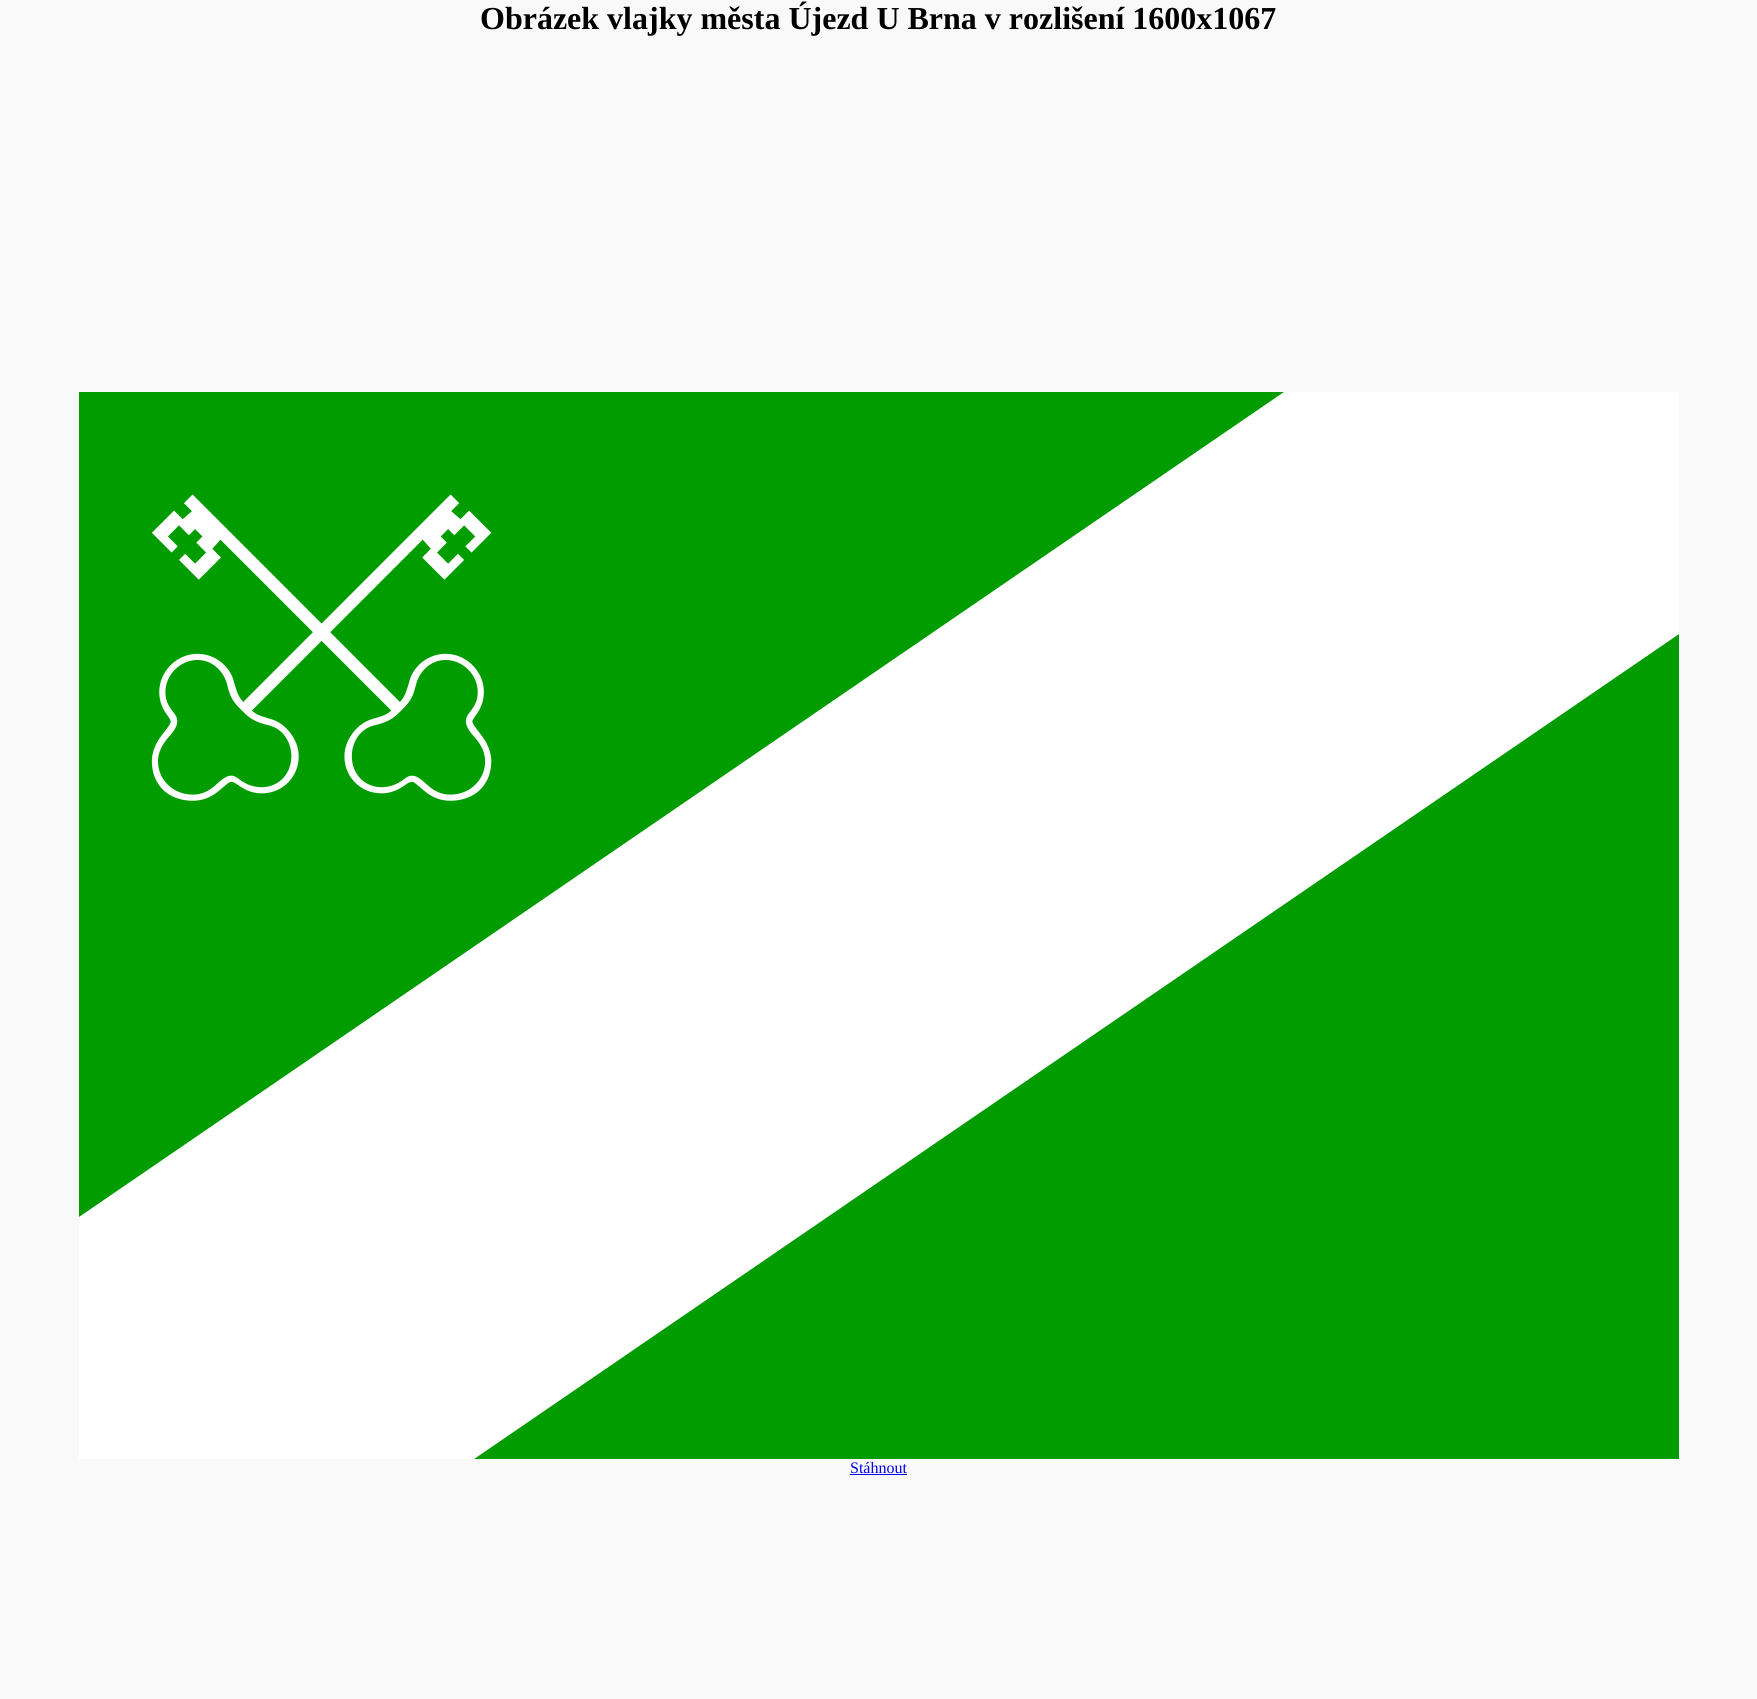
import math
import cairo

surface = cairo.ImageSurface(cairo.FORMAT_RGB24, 1757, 1699)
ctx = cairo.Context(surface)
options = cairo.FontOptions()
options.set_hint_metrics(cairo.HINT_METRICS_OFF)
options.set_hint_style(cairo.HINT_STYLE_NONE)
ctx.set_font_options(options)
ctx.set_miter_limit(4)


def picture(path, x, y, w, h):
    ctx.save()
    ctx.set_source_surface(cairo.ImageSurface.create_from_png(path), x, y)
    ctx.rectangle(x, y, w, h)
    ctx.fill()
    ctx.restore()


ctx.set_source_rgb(0.973, 0.973, 0.973)
ctx.paint()
ctx.select_font_face("Liberation Serif", cairo.FONT_SLANT_NORMAL, cairo.FONT_WEIGHT_BOLD)
ctx.set_font_size(32)
ctx.set_source_rgb(0, 0, 0)
ctx.move_to(480, 29)
ctx.show_text("Obrázek vlajky města Újezd U Brna v rozlišení 1600x1067")
picture("img1.png", 79, 392, 1600, 1067)
ctx.select_font_face("Liberation Serif")
ctx.set_font_size(16)
ctx.set_source_rgb(0, 0, 0.933)
ctx.move_to(850, 1473)
ctx.show_text("Stáhnout")
ctx.rectangle(850, 1474, 57, 1)
ctx.fill()
surface.write_to_png("page.png")
